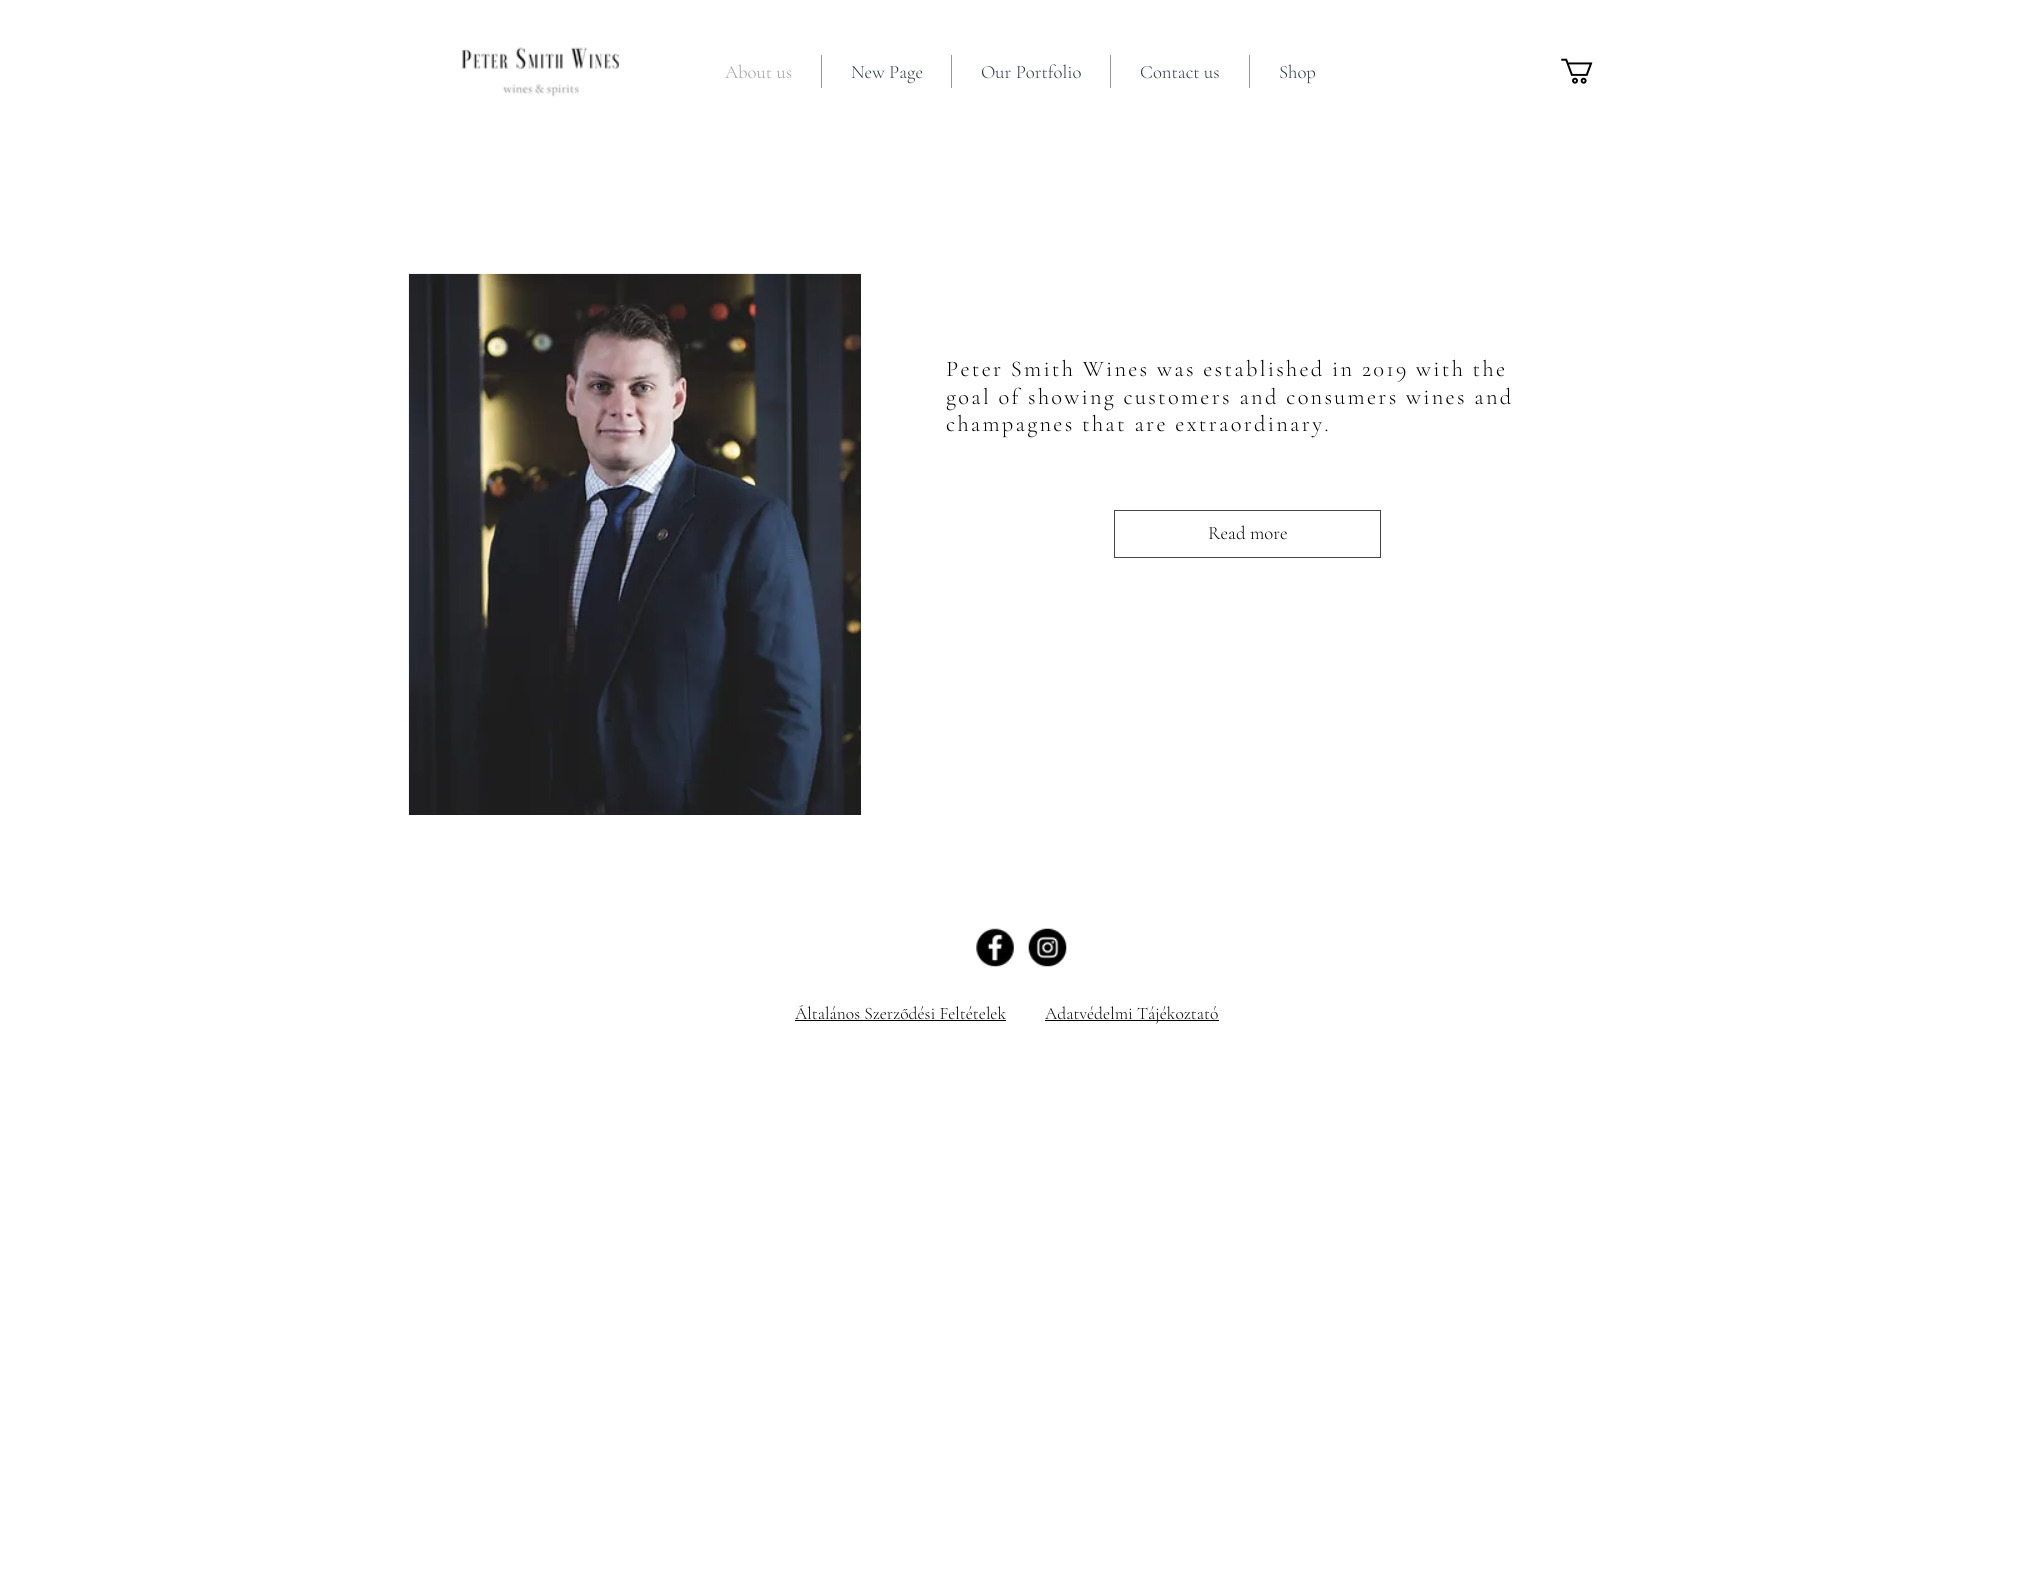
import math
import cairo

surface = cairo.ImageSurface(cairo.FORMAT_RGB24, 2042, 1586)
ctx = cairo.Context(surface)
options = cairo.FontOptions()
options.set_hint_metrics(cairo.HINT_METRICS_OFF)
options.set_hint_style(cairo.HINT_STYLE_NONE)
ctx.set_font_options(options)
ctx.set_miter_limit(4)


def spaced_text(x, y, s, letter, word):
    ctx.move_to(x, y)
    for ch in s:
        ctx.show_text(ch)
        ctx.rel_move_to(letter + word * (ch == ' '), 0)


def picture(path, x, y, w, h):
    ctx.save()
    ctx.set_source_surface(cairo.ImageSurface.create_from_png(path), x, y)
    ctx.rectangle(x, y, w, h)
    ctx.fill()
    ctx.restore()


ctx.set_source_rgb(1, 1, 1)
ctx.paint()
picture("img1.png", 461, 47, 159, 50)
ctx.select_font_face("Cormorant Garamond Light")
ctx.set_font_size(18.75)
ctx.set_source_rgb(0.627, 0.627, 0.624)
ctx.move_to(725, 78)
ctx.show_text("About us")
ctx.set_source_rgb(0.596, 0.596, 0.596)
ctx.rectangle(821, 55, 1, 33)
ctx.fill()
ctx.set_source_rgb(0.176, 0.212, 0.263)
ctx.move_to(851, 78)
ctx.show_text("New Page")
ctx.set_source_rgb(0.596, 0.596, 0.596)
ctx.rectangle(951, 55, 1, 33)
ctx.fill()
ctx.set_source_rgb(0.176, 0.212, 0.263)
ctx.move_to(981, 78)
ctx.show_text("Our Portfolio")
ctx.set_source_rgb(0.596, 0.596, 0.596)
ctx.rectangle(1110, 55, 1, 33)
ctx.fill()
ctx.set_source_rgb(0.176, 0.212, 0.263)
ctx.move_to(1140, 78)
ctx.show_text("Contact us")
ctx.set_source_rgb(0.596, 0.596, 0.596)
ctx.rectangle(1249, 55, 1, 33)
ctx.fill()
ctx.set_source_rgb(0.176, 0.212, 0.263)
ctx.move_to(1279, 78)
ctx.show_text("Shop")
picture("img2.png", 1561, 58, 32, 26)
picture("img3.png", 408, 273, 453, 542)
ctx.set_font_size(22.5)
ctx.set_source_rgb(0, 0, 0)
spaced_text(946, 376, "Peter Smith Wines was established in 2019 with the", 2.25, 0)
spaced_text(946, 404, "goal of showing customers and consumers wines and", 2.25, 0)
spaced_text(946, 431, "champagnes that are extraordinary.", 2.25, 0)
ctx.rectangle(1114.5, 510.5, 266, 47)
ctx.set_source_rgb(0.294, 0.255, 0.278)
ctx.set_line_width(1)
ctx.stroke()
ctx.set_font_size(18.75)
ctx.set_source_rgb(0, 0, 0)
ctx.move_to(1208, 539)
ctx.show_text("Read more")
picture("img4.png", 976, 928, 38, 39)
picture("img5.png", 1028, 928, 39, 39)
ctx.set_font_size(17.5)
ctx.move_to(795, 1019)
ctx.show_text("Általános Szerződési Feltételek")
ctx.rectangle(795, 1020, 211, 1)
ctx.fill()
ctx.rectangle(1045, 1020, 174, 1)
ctx.fill()
ctx.move_to(1045, 1019)
ctx.show_text("Adatvédelmi Tájékoztató")
surface.write_to_png("page.png")
